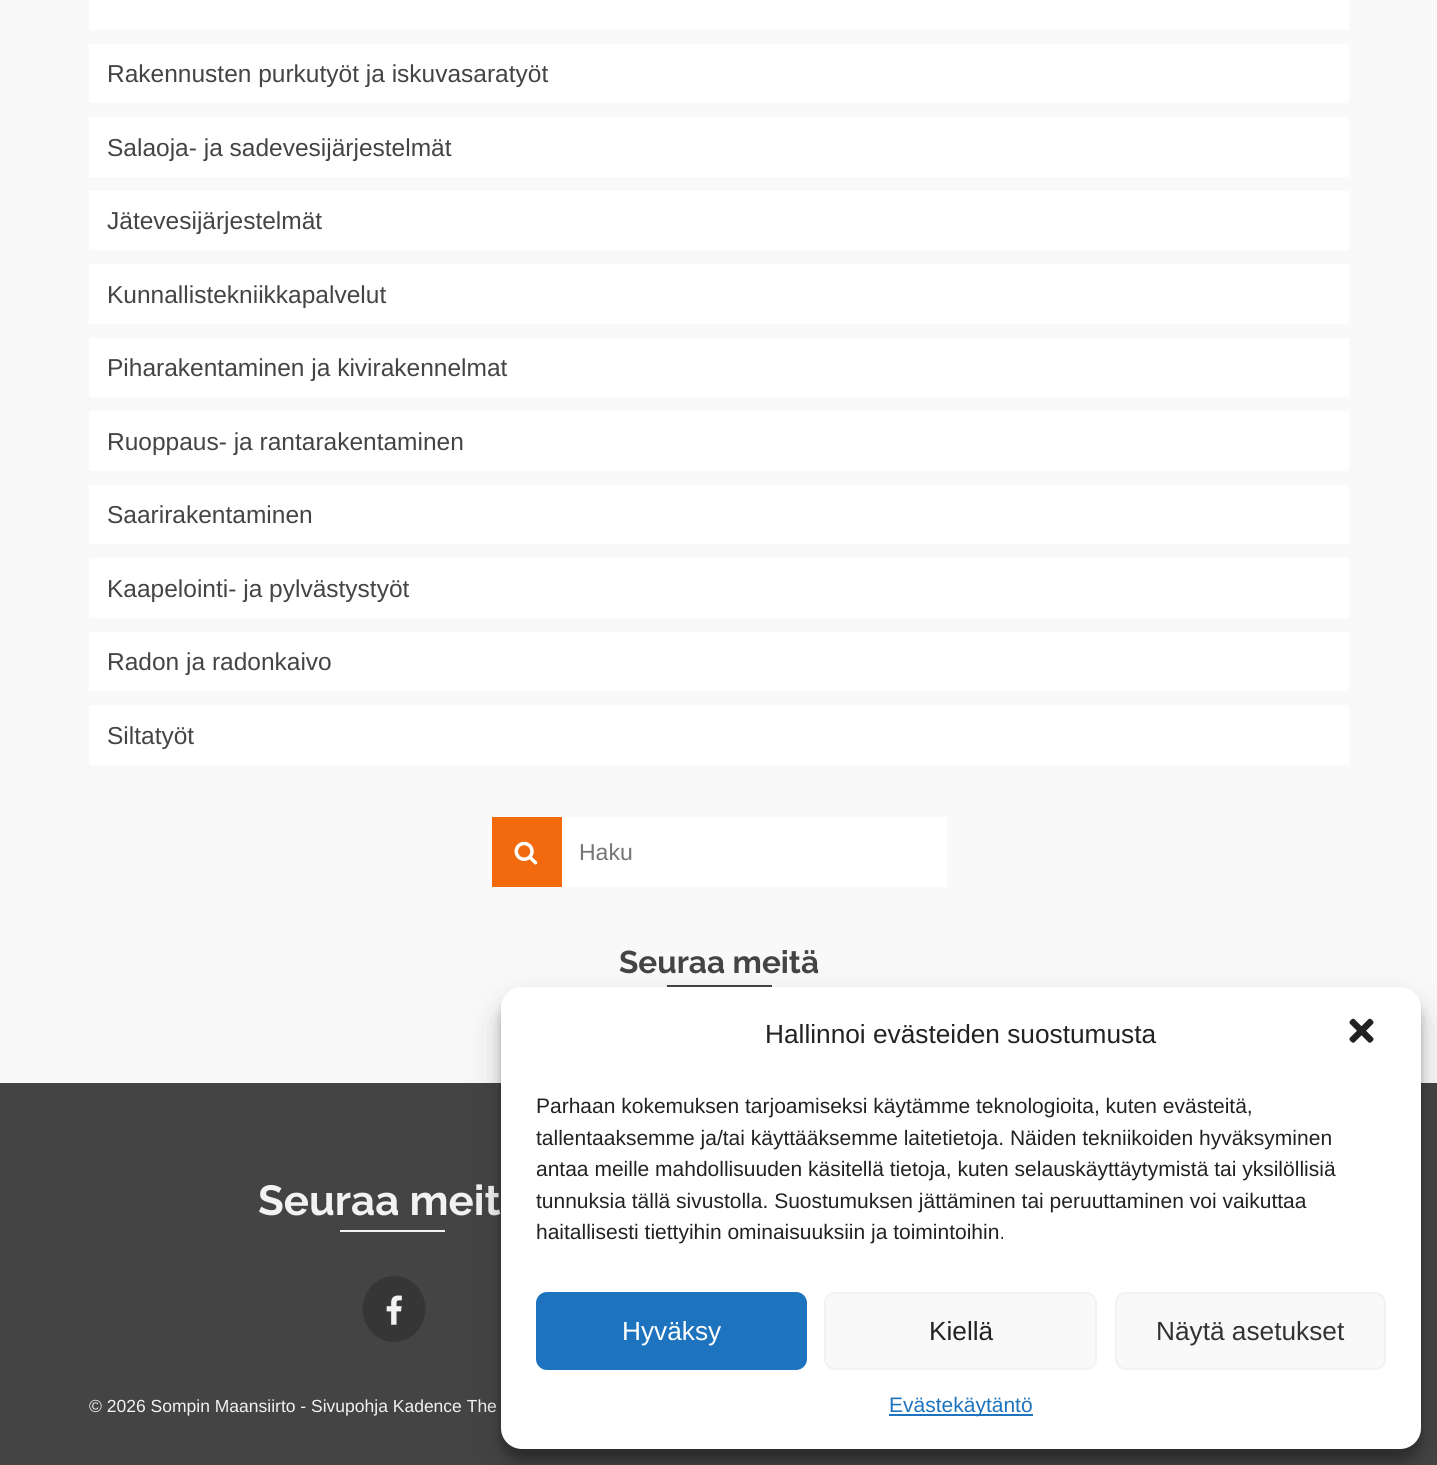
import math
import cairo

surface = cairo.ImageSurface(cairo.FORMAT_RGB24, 1437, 1465)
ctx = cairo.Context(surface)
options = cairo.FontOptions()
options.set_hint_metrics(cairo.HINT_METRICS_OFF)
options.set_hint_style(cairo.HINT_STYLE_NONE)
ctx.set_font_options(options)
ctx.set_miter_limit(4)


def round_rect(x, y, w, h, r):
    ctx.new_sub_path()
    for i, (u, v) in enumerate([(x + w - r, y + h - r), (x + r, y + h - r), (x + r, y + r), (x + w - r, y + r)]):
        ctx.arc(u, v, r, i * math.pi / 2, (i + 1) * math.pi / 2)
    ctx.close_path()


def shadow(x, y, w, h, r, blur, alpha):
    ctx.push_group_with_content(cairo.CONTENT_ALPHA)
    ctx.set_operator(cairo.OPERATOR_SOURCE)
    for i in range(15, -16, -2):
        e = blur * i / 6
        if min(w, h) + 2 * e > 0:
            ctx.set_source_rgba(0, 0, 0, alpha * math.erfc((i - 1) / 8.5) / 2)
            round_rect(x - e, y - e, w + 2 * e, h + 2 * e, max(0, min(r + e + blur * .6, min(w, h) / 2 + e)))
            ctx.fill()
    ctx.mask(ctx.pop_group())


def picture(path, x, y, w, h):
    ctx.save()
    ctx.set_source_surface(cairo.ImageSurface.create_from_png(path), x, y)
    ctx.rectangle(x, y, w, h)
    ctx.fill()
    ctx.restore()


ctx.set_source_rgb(0.976, 0.976, 0.976)
ctx.paint()
ctx.set_source_rgb(1, 1, 1)
ctx.rectangle(89, 0, 1260, 30)
ctx.fill()
ctx.rectangle(89, 44, 1260, 59)
ctx.fill()
ctx.select_font_face("Liberation Sans")
ctx.set_font_size(24.5)
ctx.set_source_rgb(0.267, 0.267, 0.267)
ctx.move_to(107, 82)
ctx.show_text("Rakennusten purkutyöt ja iskuvasaratyöt")
ctx.set_source_rgb(1, 1, 1)
ctx.rectangle(89, 117, 1260, 60)
ctx.fill()
ctx.set_source_rgb(0.267, 0.267, 0.267)
ctx.move_to(107, 156)
ctx.show_text("Salaoja- ja sadevesijärjestelmät")
ctx.set_source_rgb(1, 1, 1)
ctx.rectangle(89, 191, 1260, 59)
ctx.fill()
ctx.set_source_rgb(0.267, 0.267, 0.267)
ctx.move_to(107, 229)
ctx.show_text("Jätevesijärjestelmät")
ctx.set_source_rgb(1, 1, 1)
ctx.rectangle(89, 264, 1260, 60)
ctx.fill()
ctx.set_source_rgb(0.267, 0.267, 0.267)
ctx.move_to(107, 303)
ctx.show_text("Kunnallistekniikkapalvelut")
ctx.set_source_rgb(1, 1, 1)
ctx.rectangle(89, 338, 1260, 59)
ctx.fill()
ctx.set_source_rgb(0.267, 0.267, 0.267)
ctx.move_to(107, 376)
ctx.show_text("Piharakentaminen ja kivirakennelmat")
ctx.set_source_rgb(1, 1, 1)
ctx.rectangle(89, 411, 1260, 60)
ctx.fill()
ctx.set_source_rgb(0.267, 0.267, 0.267)
ctx.move_to(107, 450)
ctx.show_text("Ruoppaus- ja rantarakentaminen")
ctx.set_source_rgb(1, 1, 1)
ctx.rectangle(89, 485, 1260, 59)
ctx.fill()
ctx.set_source_rgb(0.267, 0.267, 0.267)
ctx.move_to(107, 523)
ctx.show_text("Saarirakentaminen")
ctx.set_source_rgb(1, 1, 1)
ctx.rectangle(89, 558, 1260, 60)
ctx.fill()
ctx.set_source_rgb(0.267, 0.267, 0.267)
ctx.move_to(107, 597)
ctx.show_text("Kaapelointi- ja pylvästystyöt")
ctx.set_source_rgb(1, 1, 1)
ctx.rectangle(89, 632, 1260, 59)
ctx.fill()
ctx.set_source_rgb(0.267, 0.267, 0.267)
ctx.move_to(107, 670)
ctx.show_text("Radon ja radonkaivo")
ctx.set_source_rgb(1, 1, 1)
ctx.rectangle(89, 705, 1260, 60)
ctx.fill()
ctx.set_source_rgb(0.267, 0.267, 0.267)
ctx.move_to(107, 744)
ctx.show_text("Siltatyöt")
ctx.set_source_rgb(0.953, 0.412, 0.055)
ctx.rectangle(492, 817, 70, 70)
ctx.fill()
picture("img1.png", 514, 841, 24, 24)
ctx.set_source_rgb(1, 1, 1)
ctx.rectangle(562, 817, 385, 70)
ctx.fill()
ctx.set_font_size(23)
ctx.set_source_rgb(0.459, 0.459, 0.459)
ctx.move_to(579, 860)
ctx.show_text("Haku")
ctx.select_font_face("Raleway", cairo.FONT_SLANT_NORMAL, cairo.FONT_WEIGHT_BOLD)
ctx.set_font_size(31.5)
ctx.set_source_rgb(0.267, 0.267, 0.267)
ctx.move_to(619, 973)
ctx.show_text("Seuraa meitä")
ctx.rectangle(667, 985, 105, 2)
ctx.fill()
ctx.rectangle(0, 1083, 1437, 382)
ctx.fill()
ctx.set_font_size(42)
ctx.set_source_rgb(0.949, 0.949, 0.949)
ctx.move_to(258, 1215)
ctx.show_text("Seuraa meit")
ctx.rectangle(340, 1230, 105, 2)
ctx.fill()
ctx.set_source_rgb(0.212, 0.212, 0.212)
ctx.new_path()
ctx.move_to(394, 1276)
ctx.curve_to(411.5, 1276, 425.5, 1291, 425.5, 1309)
ctx.curve_to(425.5, 1327, 411.5, 1342, 394, 1342)
ctx.curve_to(376.5, 1342, 362.5, 1327, 362.5, 1309)
ctx.curve_to(362.5, 1291, 376.5, 1276, 394, 1276)
ctx.close_path()
ctx.fill()
picture("img2.png", 386, 1295, 16, 30)
ctx.select_font_face("Liberation Sans")
ctx.set_font_size(17.5)
ctx.set_source_rgb(0.949, 0.949, 0.949)
ctx.move_to(89, 1412)
ctx.show_text("© 2026 Sompin Maansiirto - Sivupohja Kadence The")
ctx.set_source_rgb(0, 0, 0)
shadow(501, 998, 920, 462, 21, 5, 0.23)
shadow(501, 1005, 920, 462, 21, 17.5, 0.19)
ctx.set_source_rgb(1, 1, 1)
round_rect(501, 987, 920, 462, 21)
ctx.fill()
ctx.set_font_size(26.25)
ctx.set_source_rgb(0.133, 0.133, 0.133)
ctx.move_to(765, 1043)
ctx.show_text("Hallinnoi evästeiden suostumusta")
picture("img3.png", 1349, 1018, 25, 25)
ctx.set_font_size(21)
ctx.move_to(536, 1113)
ctx.show_text("Parhaan kokemuksen tarjoamiseksi käytämme teknologioita, kuten evästeitä,")
ctx.move_to(536, 1145)
ctx.show_text("tallentaaksemme ja/tai käyttääksemme laitetietoja. Näiden tekniikoiden hyväksyminen")
ctx.move_to(536, 1176)
ctx.show_text("antaa meille mahdollisuuden käsitellä tietoja, kuten selauskäyttäytymistä tai yksilöllisiä")
ctx.move_to(536, 1208)
ctx.show_text("tunnuksia tällä sivustolla. Suostumuksen jättäminen tai peruuttaminen voi vaikuttaa")
ctx.move_to(536, 1239)
ctx.show_text("haitallisesti tiettyihin ominaisuuksiin ja toimintoihin.")
ctx.set_source_rgb(0.118, 0.451, 0.745)
round_rect(537, 1293, 269, 76, 10)
ctx.fill_preserve()
ctx.stroke()
ctx.set_font_size(26.25)
ctx.set_source_rgb(1, 1, 1)
ctx.move_to(622, 1340)
ctx.show_text("Hyväksy")
ctx.set_source_rgb(0.976, 0.976, 0.976)
round_rect(825, 1293, 271, 76, 10)
ctx.fill_preserve()
ctx.set_source_rgb(0.949, 0.949, 0.949)
ctx.stroke()
ctx.set_source_rgb(0.133, 0.133, 0.133)
ctx.move_to(929, 1340)
ctx.show_text("Kiellä")
ctx.set_source_rgb(0.976, 0.976, 0.976)
round_rect(1116, 1293, 269, 76, 10)
ctx.fill_preserve()
ctx.set_source_rgb(0.949, 0.949, 0.949)
ctx.stroke()
ctx.set_source_rgb(0.2, 0.2, 0.2)
ctx.move_to(1156, 1340)
ctx.show_text("Näytä asetukset")
ctx.set_source_rgb(0.118, 0.451, 0.745)
ctx.rectangle(889, 1414, 144, 2)
ctx.fill()
ctx.set_font_size(21)
ctx.move_to(889, 1412)
ctx.show_text("Evästekäytäntö")
surface.write_to_png("page.png")
